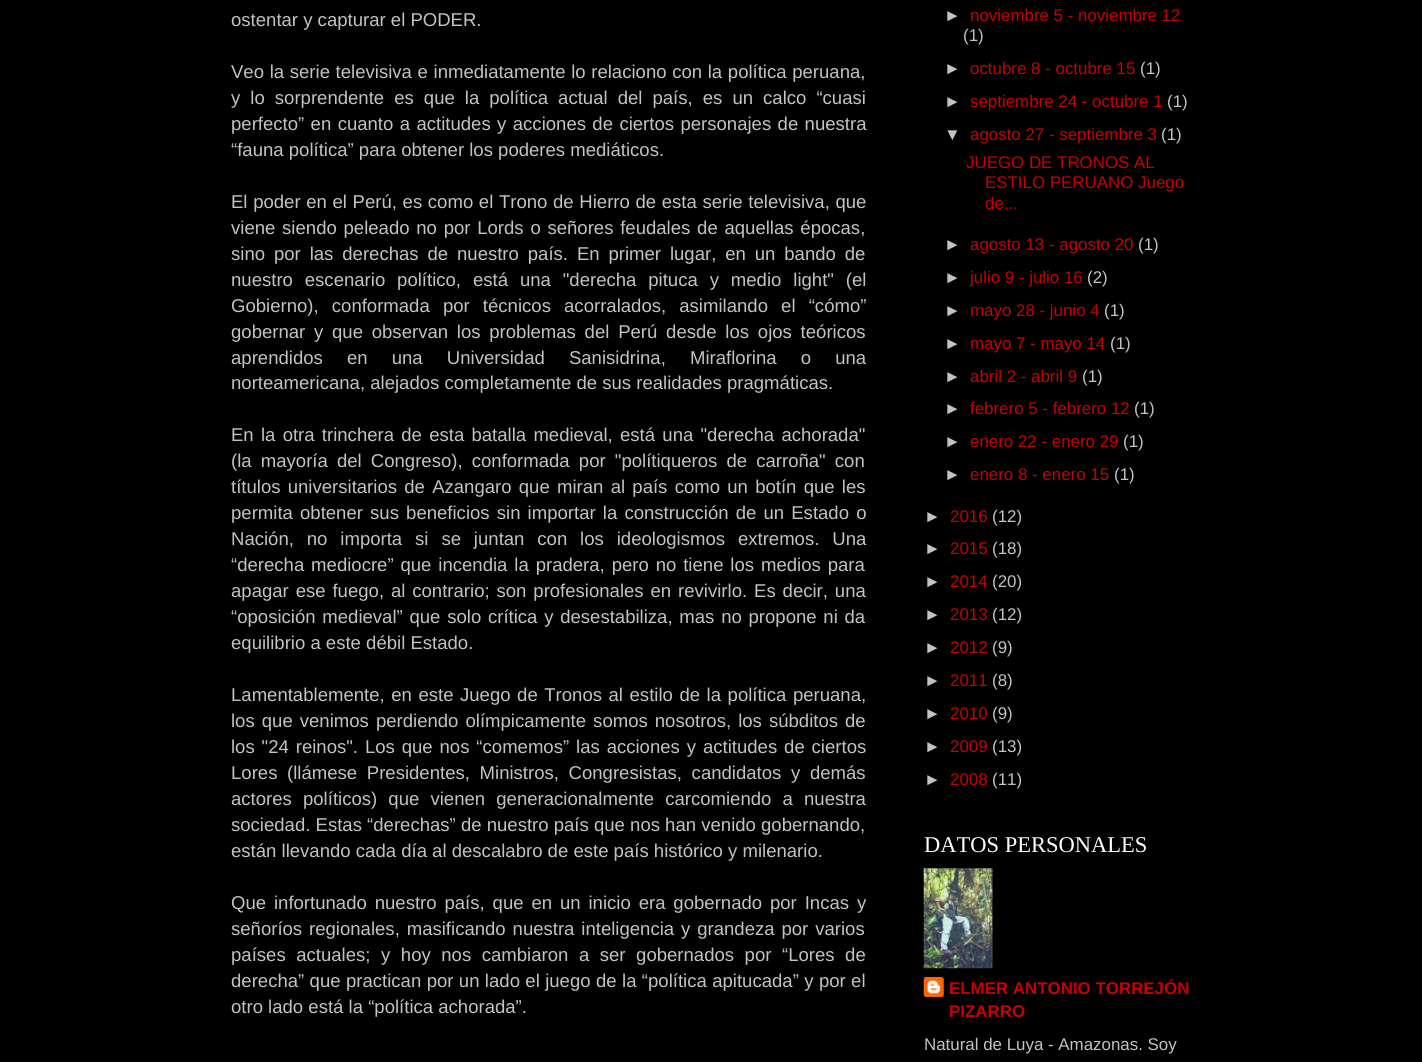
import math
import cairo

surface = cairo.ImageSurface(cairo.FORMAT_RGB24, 1422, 1062)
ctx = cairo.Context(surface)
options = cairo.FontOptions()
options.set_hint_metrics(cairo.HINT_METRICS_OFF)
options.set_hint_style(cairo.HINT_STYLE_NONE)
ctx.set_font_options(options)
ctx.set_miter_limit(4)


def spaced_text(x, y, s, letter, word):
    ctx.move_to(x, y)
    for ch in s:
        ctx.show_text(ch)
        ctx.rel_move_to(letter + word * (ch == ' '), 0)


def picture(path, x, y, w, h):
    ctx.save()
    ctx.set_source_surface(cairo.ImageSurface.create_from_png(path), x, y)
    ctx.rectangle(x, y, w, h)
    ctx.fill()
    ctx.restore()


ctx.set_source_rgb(0, 0, 0)
ctx.paint()
ctx.select_font_face("Liberation Sans")
ctx.set_font_size(18.55)
ctx.set_source_rgb(0.765, 0.765, 0.765)
ctx.move_to(231, 26)
ctx.show_text("ostentar y capturar el PODER.")
spaced_text(231, 78, "Veo la serie televisiva e inmediatamente lo relaciono con la política peruana,", 0, 0.5)
spaced_text(231, 104, "y lo sorprendente es que la política actual del país, es un calco “cuasi", 0, 4.9)
spaced_text(231, 130, "perfecto” en cuanto a actitudes y acciones de ciertos personajes de nuestra", 0, 1.25)
ctx.move_to(231, 156)
ctx.show_text("“fauna política” para obtener los poderes mediáticos.")
spaced_text(231, 208, "El poder en el Perú, es como el Trono de Hierro de esta serie televisiva, que", 0, 0.5)
spaced_text(231, 234, "viene siendo peleado no por Lords o señores feudales de aquellas épocas,", 0, 1.6)
spaced_text(231, 260, "sino por las derechas de nuestro país. En primer lugar, en un bando de", 0, 3.75)
spaced_text(231, 286, "nuestro escenario político, está una \"derecha pituca y medio light\" (el", 0, 6.75)
spaced_text(231, 312, "Gobierno), conformada por técnicos acorralados, asimilando el “cómo”", 0, 8)
spaced_text(231, 338, "gobernar y que observan los problemas del Perú desde los ojos teóricos", 0, 3.6)
spaced_text(231, 364, "aprendidos en una Universidad Sanisidrina, Miraflorina o una", 0, 19)
ctx.move_to(231, 389)
ctx.show_text("norteamericana, alejados completamente de sus realidades pragmáticas.")
spaced_text(231, 441, "En la otra trinchera de esta batalla medieval, está una \"derecha achorada\"", 0, 2.1)
spaced_text(231, 467, "(la mayoría del Congreso), conformada por \"polítiqueros de carroña\" con", 0, 4)
spaced_text(231, 493, "títulos universitarios de Azangaro que miran al país como un botín que les", 0, 2.1)
spaced_text(231, 519, "permita obtener sus beneficios sin importar la construcción de un Estado o", 0, 2)
spaced_text(231, 545, "Nación, no importa si se juntan con los ideologismos extremos. Una", 0, 7.75)
spaced_text(231, 571, "“derecha mediocre” que incendia la pradera, pero no tiene los medios para", 0, 1.75)
spaced_text(231, 597, "apagar ese fuego, al contrario; son profesionales en revivirlo. Es decir, una", 0, 1.75)
spaced_text(231, 623, "“oposición medieval” que solo crítica y desestabiliza, mas no propone ni da", 0, 1.6)
ctx.move_to(231, 649)
ctx.show_text("equilibrio a este débil Estado.")
spaced_text(231, 701, "Lamentablemente, en este Juego de Tronos al estilo de la política peruana,", 0, 1.4)
spaced_text(231, 727, "los que venimos perdiendo olímpicamente somos nosotros, los súbditos de", 0, 1.9)
spaced_text(231, 753, "los \"24 reinos\". Los que nos “comemos” las acciones y actitudes de ciertos", 0, 1.75)
spaced_text(231, 779, "Lores (llámese Presidentes, Ministros, Congresistas, candidatos y demás", 0, 4.5)
spaced_text(231, 805, "actores políticos) que vienen generacionalmente carcomiendo a nuestra", 0, 6)
ctx.move_to(231, 831)
ctx.show_text("sociedad. Estas “derechas” de nuestro país que nos han venido gobernando,")
ctx.move_to(231, 857)
ctx.show_text("están llevando cada día al descalabro de este país histórico y milenario.")
spaced_text(231, 909, "Que infortunado nuestro país, que en un inicio era gobernado por Incas y", 0, 2.75)
spaced_text(231, 935, "señoríos regionales, masificando nuestra inteligencia y grandeza por varios", 0, 1.75)
spaced_text(231, 961, "países actuales; y hoy nos cambiaron a ser gobernados por “Lores de", 0, 5.4)
spaced_text(231, 987, "derecha” que practican por un lado el juego de la “política apitucada” y por el", 0, 0.25)
ctx.move_to(231, 1013)
ctx.show_text("otro lado está la “política achorada”.")
ctx.set_font_size(16.9)
ctx.move_to(944, 21)
ctx.show_text("►")
ctx.set_source_rgb(0.792, 0, 0)
ctx.move_to(970, 21)
ctx.show_text("noviembre 5 - noviembre 12")
ctx.set_source_rgb(0.765, 0.765, 0.765)
ctx.move_to(963, 41)
ctx.show_text("(1)")
ctx.move_to(944, 74)
ctx.show_text("►")
ctx.set_source_rgb(0.792, 0, 0)
ctx.move_to(970, 74)
ctx.show_text("octubre 8 - octubre 15")
ctx.set_source_rgb(0.765, 0.765, 0.765)
ctx.move_to(1140, 74)
ctx.show_text("(1)")
ctx.move_to(944, 107)
ctx.show_text("►")
ctx.set_source_rgb(0.792, 0, 0)
ctx.move_to(970, 107)
ctx.show_text("septiembre 24 - octubre 1")
ctx.set_source_rgb(0.765, 0.765, 0.765)
ctx.move_to(1167, 107)
ctx.show_text("(1)")
ctx.move_to(944, 140)
ctx.show_text("▼")
ctx.set_source_rgb(0.792, 0, 0)
ctx.move_to(970, 140)
ctx.show_text("agosto 27 - septiembre 3")
ctx.set_source_rgb(0.765, 0.765, 0.765)
ctx.move_to(1161, 140)
ctx.show_text("(1)")
ctx.set_source_rgb(0.792, 0, 0)
ctx.move_to(966, 168)
ctx.show_text("JUEGO DE TRONOS AL")
ctx.move_to(985, 188)
ctx.show_text("ESTILO PERUANO Juego")
ctx.move_to(985, 209)
ctx.show_text("de...")
ctx.set_source_rgb(0.765, 0.765, 0.765)
ctx.move_to(944, 250)
ctx.show_text("►")
ctx.set_source_rgb(0.792, 0, 0)
ctx.move_to(970, 250)
ctx.show_text("agosto 13 - agosto 20")
ctx.set_source_rgb(0.765, 0.765, 0.765)
ctx.move_to(1138, 250)
ctx.show_text("(1)")
ctx.move_to(944, 283)
ctx.show_text("►")
ctx.set_source_rgb(0.792, 0, 0)
ctx.move_to(970, 283)
ctx.show_text("julio 9 - julio 16")
ctx.set_source_rgb(0.765, 0.765, 0.765)
ctx.move_to(1087, 283)
ctx.show_text("(2)")
ctx.move_to(944, 316)
ctx.show_text("►")
ctx.set_source_rgb(0.792, 0, 0)
ctx.move_to(970, 316)
ctx.show_text("mayo 28 - junio 4")
ctx.set_source_rgb(0.765, 0.765, 0.765)
ctx.move_to(1104, 316)
ctx.show_text("(1)")
ctx.move_to(944, 349)
ctx.show_text("►")
ctx.set_source_rgb(0.792, 0, 0)
ctx.move_to(970, 349)
ctx.show_text("mayo 7 - mayo 14")
ctx.set_source_rgb(0.765, 0.765, 0.765)
ctx.move_to(1110, 349)
ctx.show_text("(1)")
ctx.move_to(944, 382)
ctx.show_text("►")
ctx.set_source_rgb(0.792, 0, 0)
ctx.move_to(970, 382)
ctx.show_text("abril 2 - abril 9")
ctx.set_source_rgb(0.765, 0.765, 0.765)
ctx.move_to(1082, 382)
ctx.show_text("(1)")
ctx.move_to(944, 414)
ctx.show_text("►")
ctx.set_source_rgb(0.792, 0, 0)
ctx.move_to(970, 414)
ctx.show_text("febrero 5 - febrero 12")
ctx.set_source_rgb(0.765, 0.765, 0.765)
ctx.move_to(1134, 414)
ctx.show_text("(1)")
ctx.move_to(944, 447)
ctx.show_text("►")
ctx.set_source_rgb(0.792, 0, 0)
ctx.move_to(970, 447)
ctx.show_text("enero 22 - enero 29")
ctx.set_source_rgb(0.765, 0.765, 0.765)
ctx.move_to(1123, 447)
ctx.show_text("(1)")
ctx.move_to(944, 480)
ctx.show_text("►")
ctx.set_source_rgb(0.792, 0, 0)
ctx.move_to(970, 480)
ctx.show_text("enero 8 - enero 15")
ctx.set_source_rgb(0.765, 0.765, 0.765)
ctx.move_to(1114, 480)
ctx.show_text("(1)")
ctx.move_to(924, 522)
ctx.show_text("►")
ctx.set_source_rgb(0.792, 0, 0)
ctx.move_to(950, 522)
ctx.show_text("2016")
ctx.set_source_rgb(0.765, 0.765, 0.765)
ctx.move_to(992, 522)
ctx.show_text("(12)")
ctx.move_to(924, 554)
ctx.show_text("►")
ctx.set_source_rgb(0.792, 0, 0)
ctx.move_to(950, 554)
ctx.show_text("2015")
ctx.set_source_rgb(0.765, 0.765, 0.765)
ctx.move_to(992, 554)
ctx.show_text("(18)")
ctx.move_to(924, 587)
ctx.show_text("►")
ctx.set_source_rgb(0.792, 0, 0)
ctx.move_to(950, 587)
ctx.show_text("2014")
ctx.set_source_rgb(0.765, 0.765, 0.765)
ctx.move_to(992, 587)
ctx.show_text("(20)")
ctx.move_to(924, 620)
ctx.show_text("►")
ctx.set_source_rgb(0.792, 0, 0)
ctx.move_to(950, 620)
ctx.show_text("2013")
ctx.set_source_rgb(0.765, 0.765, 0.765)
ctx.move_to(992, 620)
ctx.show_text("(12)")
ctx.move_to(924, 653)
ctx.show_text("►")
ctx.set_source_rgb(0.792, 0, 0)
ctx.move_to(950, 653)
ctx.show_text("2012")
ctx.set_source_rgb(0.765, 0.765, 0.765)
ctx.move_to(992, 653)
ctx.show_text("(9)")
ctx.move_to(924, 686)
ctx.show_text("►")
ctx.set_source_rgb(0.792, 0, 0)
ctx.move_to(950, 686)
ctx.show_text("2011")
ctx.set_source_rgb(0.765, 0.765, 0.765)
ctx.move_to(992, 686)
ctx.show_text("(8)")
ctx.move_to(924, 719)
ctx.show_text("►")
ctx.set_source_rgb(0.792, 0, 0)
ctx.move_to(950, 719)
ctx.show_text("2010")
ctx.set_source_rgb(0.765, 0.765, 0.765)
ctx.move_to(992, 719)
ctx.show_text("(9)")
ctx.move_to(924, 752)
ctx.show_text("►")
ctx.set_source_rgb(0.792, 0, 0)
ctx.move_to(950, 752)
ctx.show_text("2009")
ctx.set_source_rgb(0.765, 0.765, 0.765)
ctx.move_to(992, 752)
ctx.show_text("(13)")
ctx.move_to(924, 785)
ctx.show_text("►")
ctx.set_source_rgb(0.792, 0, 0)
ctx.move_to(950, 785)
ctx.show_text("2008")
ctx.set_source_rgb(0.765, 0.765, 0.765)
ctx.move_to(992, 785)
ctx.show_text("(11)")
ctx.select_font_face("Liberation Serif")
ctx.set_font_size(22.5)
ctx.set_source_rgb(1, 1, 1)
ctx.move_to(924, 852)
ctx.show_text("DATOS PERSONALES")
picture("img1.png", 923, 868, 70, 101)
picture("img2.png", 923, 977, 21, 20)
ctx.select_font_face("Liberation Sans", cairo.FONT_SLANT_NORMAL, cairo.FONT_WEIGHT_BOLD)
ctx.set_font_size(16.9)
ctx.set_source_rgb(0.792, 0, 0)
ctx.move_to(949, 994)
ctx.show_text("ELMER ANTONIO TORREJÓN")
ctx.move_to(949, 1017)
ctx.show_text("PIZARRO")
ctx.select_font_face("Liberation Sans")
ctx.set_source_rgb(0.765, 0.765, 0.765)
ctx.move_to(924, 1050)
ctx.show_text("Natural de Luya - Amazonas. Soy")
surface.write_to_png("page.png")
